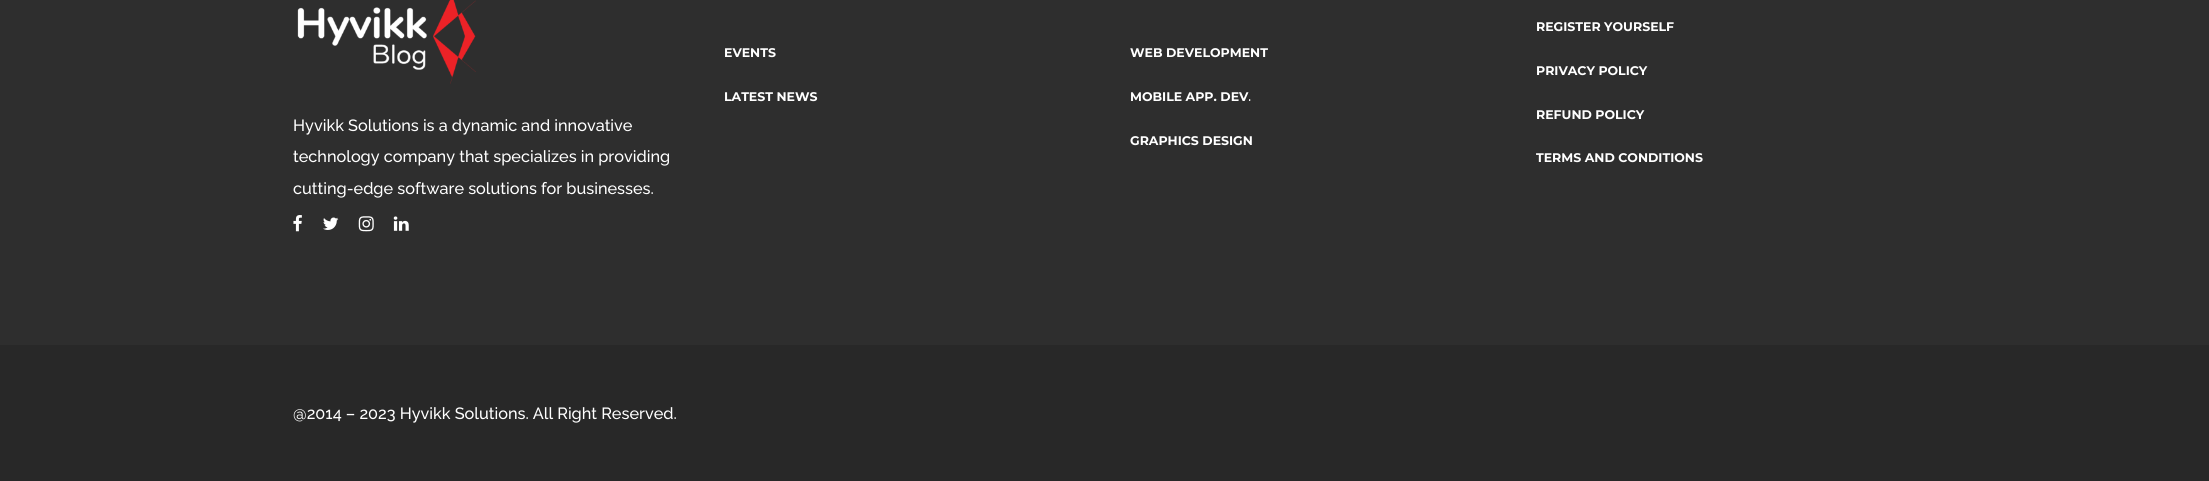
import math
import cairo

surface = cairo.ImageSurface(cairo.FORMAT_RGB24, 2209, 481)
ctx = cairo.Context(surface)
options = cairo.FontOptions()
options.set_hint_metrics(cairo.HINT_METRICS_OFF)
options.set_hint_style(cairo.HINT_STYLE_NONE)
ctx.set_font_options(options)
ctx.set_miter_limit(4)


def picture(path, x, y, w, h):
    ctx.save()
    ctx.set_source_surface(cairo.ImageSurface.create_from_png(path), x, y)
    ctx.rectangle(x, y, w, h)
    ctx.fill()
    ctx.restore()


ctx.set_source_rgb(0.157, 0.157, 0.157)
ctx.paint()
ctx.set_source_rgb(0.18, 0.18, 0.18)
ctx.rectangle(0, 0, 2209, 345)
ctx.fill()
ctx.select_font_face("Montserrat", cairo.FONT_SLANT_NORMAL, cairo.FONT_WEIGHT_BOLD)
ctx.set_font_size(12.5)
ctx.set_source_rgb(1, 1, 1)
ctx.move_to(724, 57)
ctx.show_text("EVENTS")
ctx.move_to(724, 101)
ctx.show_text("LATEST NEWS")
ctx.move_to(1130, 57)
ctx.show_text("WEB DEVELOPMENT")
ctx.move_to(1130, 101)
ctx.show_text("MOBILE APP. DEV")
ctx.select_font_face("Raleway Medium")
ctx.set_font_size(16.25)
ctx.move_to(1248, 101)
ctx.show_text(".")
ctx.select_font_face("Montserrat", cairo.FONT_SLANT_NORMAL, cairo.FONT_WEIGHT_BOLD)
ctx.set_font_size(12.5)
ctx.move_to(1130, 145)
ctx.show_text("GRAPHICS DESIGN")
ctx.move_to(1536, 31)
ctx.show_text("REGISTER YOURSELF")
ctx.move_to(1536, 75)
ctx.show_text("PRIVACY POLICY")
ctx.move_to(1536, 119)
ctx.show_text("REFUND POLICY")
ctx.move_to(1536, 162)
ctx.show_text("TERMS AND CONDITIONS")
picture("img1.png", 297, 0, 179, 84)
ctx.select_font_face("Raleway Medium")
ctx.set_font_size(16.25)
ctx.move_to(293, 131)
ctx.show_text("Hyvikk Solutions is a dynamic and innovative")
ctx.move_to(293, 162)
ctx.show_text("technology company that specializes in providing")
ctx.move_to(293, 194)
ctx.show_text("cutting-edge software solutions for businesses.")
picture("img2.png", 293, 215, 9, 17)
picture("img3.png", 323, 217, 16, 13)
picture("img4.png", 358, 216, 16, 16)
picture("img5.png", 393, 216, 16, 15)
ctx.move_to(293, 419)
ctx.show_text("@2014 – 2023 Hyvikk Solutions. All Right Reserved.")
surface.write_to_png("page.png")
